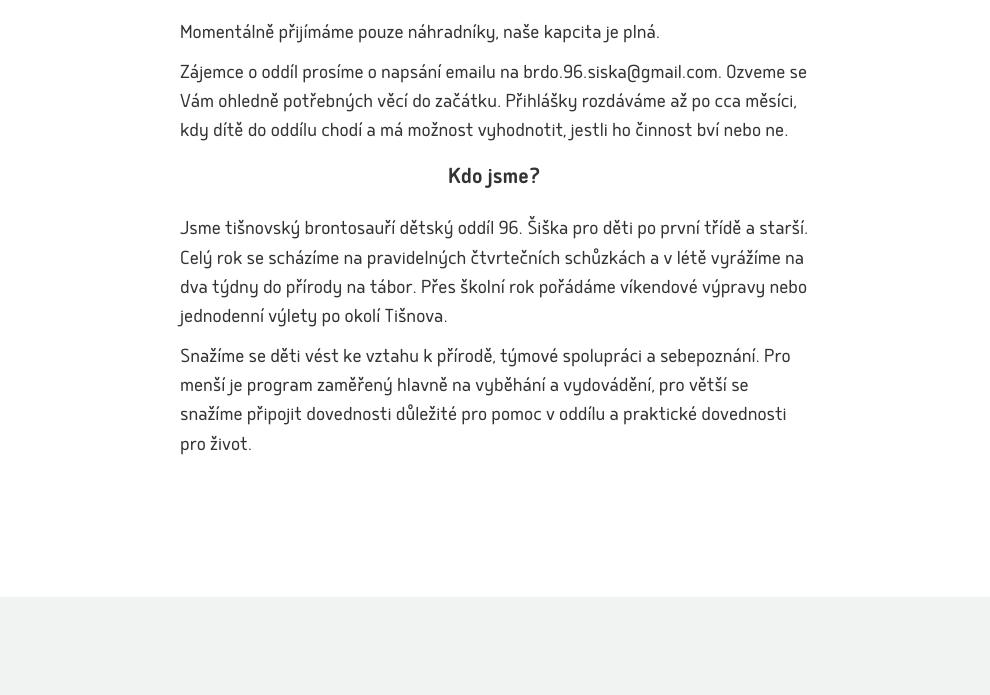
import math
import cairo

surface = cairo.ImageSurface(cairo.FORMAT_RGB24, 990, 695)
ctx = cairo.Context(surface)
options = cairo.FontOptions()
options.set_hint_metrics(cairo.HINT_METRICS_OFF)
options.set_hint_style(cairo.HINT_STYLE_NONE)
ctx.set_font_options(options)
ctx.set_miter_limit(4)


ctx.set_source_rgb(1, 1, 1)
ctx.paint()
ctx.select_font_face("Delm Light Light")
ctx.set_font_size(22.4)
ctx.set_source_rgb(0.2, 0.2, 0.2)
ctx.move_to(180, 38)
ctx.show_text("Momentálně přijímáme pouze náhradníky, naše kapcita je plná.")
ctx.move_to(180, 78)
ctx.show_text("Zájemce o oddíl prosíme o napsání emailu na brdo.96.siska@gmail.com. Ozveme se")
ctx.move_to(180, 107)
ctx.show_text("Vám ohledně potřebných věcí do začátku. Přihlášky rozdáváme až po cca měsíci,")
ctx.move_to(180, 136)
ctx.show_text("kdy dítě do oddílu chodí a má možnost vyhodnotit, jestli ho činnost bví nebo ne.")
ctx.select_font_face("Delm")
ctx.set_font_size(26)
ctx.move_to(448, 183)
ctx.show_text("Kdo jsme?")
ctx.select_font_face("Delm Light Light")
ctx.set_font_size(22.4)
ctx.move_to(180, 234)
ctx.show_text("Jsme tišnovský brontosauří dětský oddíl 96. Šiška pro děti po první třídě a starší.")
ctx.move_to(180, 264)
ctx.show_text("Celý rok se scházíme na pravidelných čtvrtečních schůzkách a v létě vyrážíme na")
ctx.move_to(180, 293)
ctx.show_text("dva týdny do přírody na tábor. Přes školní rok pořádáme víkendové výpravy nebo")
ctx.move_to(180, 322)
ctx.show_text("jednodenní výlety po okolí Tišnova.")
ctx.move_to(180, 362)
ctx.show_text("Snažíme se děti vést ke vztahu k přírodě, týmové spolupráci a sebepoznání. Pro")
ctx.move_to(180, 391)
ctx.show_text("menší je program zaměřený hlavně na vyběhání a vydovádění, pro větší se")
ctx.move_to(180, 420)
ctx.show_text("snažíme připojit dovednosti důležité pro pomoc v oddílu a praktické dovednosti")
ctx.move_to(180, 450)
ctx.show_text("pro život.")
ctx.set_source_rgb(0.941, 0.953, 0.949)
ctx.rectangle(0, 597, 990, 98)
ctx.fill()
surface.write_to_png("page.png")
